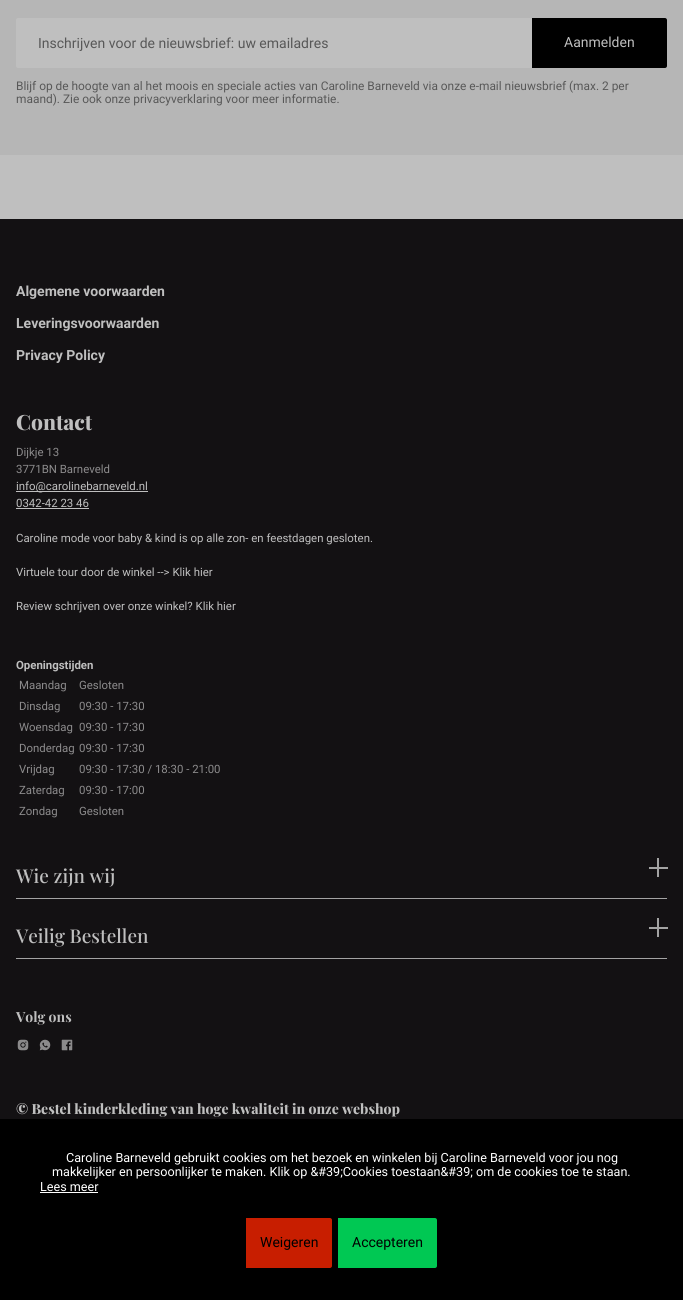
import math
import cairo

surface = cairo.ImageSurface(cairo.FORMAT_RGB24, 683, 1300)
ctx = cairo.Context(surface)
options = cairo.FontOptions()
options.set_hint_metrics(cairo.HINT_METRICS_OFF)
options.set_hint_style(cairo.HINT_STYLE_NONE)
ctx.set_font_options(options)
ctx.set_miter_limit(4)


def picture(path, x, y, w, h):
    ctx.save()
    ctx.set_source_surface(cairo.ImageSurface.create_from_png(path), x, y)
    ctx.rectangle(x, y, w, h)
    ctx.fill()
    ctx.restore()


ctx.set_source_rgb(0.749, 0.749, 0.749)
ctx.paint()
ctx.set_source_rgb(0.714, 0.714, 0.714)
ctx.rectangle(0, 0, 683, 155)
ctx.fill()
ctx.set_source_rgb(0.749, 0.749, 0.749)
ctx.new_path()
ctx.move_to(18, 18)
ctx.line_to(532, 18)
ctx.line_to(532, 68)
ctx.line_to(18, 68)
ctx.curve_to(17, 68, 16, 67, 16, 66)
ctx.line_to(16, 20)
ctx.curve_to(16, 19, 17, 18, 18, 18)
ctx.close_path()
ctx.fill()
ctx.select_font_face("Roboto")
ctx.set_font_size(14)
ctx.set_source_rgb(0.345, 0.345, 0.345)
ctx.move_to(38, 48)
ctx.show_text("Inschrijven voor de nieuwsbrief: uw emailadres")
ctx.set_source_rgb(0, 0, 0)
ctx.new_path()
ctx.move_to(532, 18)
ctx.line_to(665, 18)
ctx.curve_to(666, 18, 667, 19, 667, 20)
ctx.line_to(667, 66)
ctx.curve_to(667, 67, 666, 68, 665, 68)
ctx.line_to(532, 68)
ctx.close_path()
ctx.fill()
ctx.set_source_rgb(0.749, 0.749, 0.749)
ctx.move_to(564, 47)
ctx.show_text("Aanmelden")
ctx.set_font_size(11.9)
ctx.set_source_rgb(0.345, 0.345, 0.345)
ctx.move_to(16, 90)
ctx.show_text("Blijf op de hoogte van al het moois en speciale acties van Caroline Barneveld via onze e-mail nieuwsbrief (max. 2 per")
ctx.move_to(16, 103)
ctx.show_text("maand). Zie ook onze privacyverklaring voor meer informatie.")
ctx.set_source_rgb(0.078, 0.067, 0.078)
ctx.rectangle(0, 219, 683, 900)
ctx.fill()
ctx.select_font_face("Roboto", cairo.FONT_SLANT_NORMAL, cairo.FONT_WEIGHT_BOLD)
ctx.set_font_size(14)
ctx.set_source_rgb(0.749, 0.749, 0.749)
ctx.move_to(16, 296)
ctx.show_text("Algemene voorwaarden")
ctx.move_to(16, 328)
ctx.show_text("Leveringsvoorwaarden")
ctx.move_to(16, 360)
ctx.show_text("Privacy Policy")
ctx.select_font_face("Playfair Display ExtraBold")
ctx.set_font_size(21)
ctx.move_to(16, 430)
ctx.show_text("Contact")
ctx.select_font_face("Roboto")
ctx.set_font_size(11.4)
ctx.set_source_rgb(0.549, 0.545, 0.549)
ctx.move_to(16, 456)
ctx.show_text("Dijkje 13")
ctx.move_to(16, 473)
ctx.show_text("3771BN Barneveld")
ctx.set_source_rgb(0.749, 0.749, 0.749)
ctx.rectangle(16, 491, 132, 1)
ctx.fill()
ctx.move_to(16, 490)
ctx.show_text("info@carolinebarneveld.nl")
ctx.move_to(16, 507)
ctx.show_text("0342-42 23 46")
ctx.rectangle(16, 508, 73, 1)
ctx.fill()
ctx.move_to(16, 542)
ctx.show_text("Caroline mode voor baby & kind is op alle zon- en feestdagen gesloten.")
ctx.move_to(16, 576)
ctx.show_text("Virtuele tour door de winkel --> Klik hier")
ctx.move_to(16, 610)
ctx.show_text("Review schrijven over onze winkel? Klik hier")
ctx.select_font_face("Roboto", cairo.FONT_SLANT_NORMAL, cairo.FONT_WEIGHT_BOLD)
ctx.move_to(16, 669)
ctx.show_text("Openingstijden")
ctx.select_font_face("Roboto")
ctx.set_source_rgb(0.549, 0.545, 0.549)
ctx.move_to(19, 689)
ctx.show_text("Maandag")
ctx.move_to(79, 689)
ctx.show_text("Gesloten")
ctx.move_to(19, 710)
ctx.show_text("Dinsdag")
ctx.move_to(79, 710)
ctx.show_text("09:30 - 17:30")
ctx.move_to(19, 731)
ctx.show_text("Woensdag")
ctx.move_to(79, 731)
ctx.show_text("09:30 - 17:30")
ctx.move_to(19, 752)
ctx.show_text("Donderdag")
ctx.move_to(79, 752)
ctx.show_text("09:30 - 17:30")
ctx.move_to(19, 773)
ctx.show_text("Vrijdag")
ctx.move_to(79, 773)
ctx.show_text("09:30 - 17:30 / 18:30 - 21:00")
ctx.move_to(19, 794)
ctx.show_text("Zaterdag")
ctx.move_to(79, 794)
ctx.show_text("09:30 - 17:00")
ctx.move_to(19, 815)
ctx.show_text("Zondag")
ctx.move_to(79, 815)
ctx.show_text("Gesloten")
ctx.set_source_rgb(0.639, 0.639, 0.639)
ctx.rectangle(16, 898, 651, 1)
ctx.fill()
ctx.select_font_face("Playfair Display Medium")
ctx.set_font_size(19)
ctx.set_source_rgb(0.749, 0.749, 0.749)
ctx.move_to(16, 883)
ctx.show_text("Wie zijn wij")
ctx.set_source_rgb(0.639, 0.639, 0.639)
ctx.rectangle(649, 867, 19, 2)
ctx.fill()
ctx.rectangle(657, 858, 2, 19)
ctx.fill()
ctx.rectangle(16, 958, 651, 1)
ctx.fill()
ctx.set_source_rgb(0.749, 0.749, 0.749)
ctx.move_to(16, 943)
ctx.show_text("Veilig Bestellen")
ctx.set_source_rgb(0.639, 0.639, 0.639)
ctx.rectangle(649, 927, 19, 2)
ctx.fill()
ctx.rectangle(657, 918, 2, 19)
ctx.fill()
ctx.select_font_face("Playfair Display", cairo.FONT_SLANT_NORMAL, cairo.FONT_WEIGHT_BOLD)
ctx.set_font_size(14)
ctx.set_source_rgb(0.749, 0.749, 0.749)
ctx.move_to(16, 1022)
ctx.show_text("Volg ons")
picture("img1.png", 17, 1039, 12, 12)
picture("img2.png", 39, 1039, 12, 12)
picture("img3.png", 61, 1039, 12, 12)
ctx.select_font_face("Playfair Display ExtraBold")
ctx.move_to(16, 1114)
ctx.show_text("© Bestel kinderkleding van hoge kwaliteit in onze webshop")
ctx.set_source_rgb(0, 0, 0)
ctx.rectangle(0, 1119, 683, 181)
ctx.fill()
ctx.select_font_face("Roboto")
ctx.set_font_size(12.6)
ctx.set_source_rgb(1, 1, 1)
ctx.move_to(66, 1162)
ctx.show_text("Caroline Barneveld gebruikt cookies om het bezoek en winkelen bij Caroline Barneveld voor jou nog")
ctx.move_to(52, 1176)
ctx.show_text("makkelijker en persoonlijker te maken. Klik op &#39;Cookies toestaan&#39; om de cookies toe te staan.")
ctx.move_to(40, 1191)
ctx.show_text("Lees meer")
ctx.rectangle(40, 1192, 58, 1)
ctx.fill()
ctx.set_source_rgb(0.784, 0.118, 0)
ctx.new_path()
ctx.move_to(246, 1218)
ctx.line_to(330, 1218)
ctx.curve_to(331, 1218, 332, 1219, 332, 1220)
ctx.line_to(332, 1266)
ctx.curve_to(332, 1267, 331, 1268, 330, 1268)
ctx.line_to(246, 1268)
ctx.close_path()
ctx.fill()
ctx.set_font_size(14)
ctx.set_source_rgb(0, 0, 0)
ctx.move_to(260, 1247)
ctx.show_text("Weigeren")
ctx.set_source_rgb(0, 0.784, 0.325)
ctx.new_path()
ctx.move_to(338, 1218)
ctx.line_to(435, 1218)
ctx.curve_to(436, 1218, 437, 1219, 437, 1220)
ctx.line_to(437, 1266)
ctx.curve_to(437, 1267, 436, 1268, 435, 1268)
ctx.line_to(338, 1268)
ctx.close_path()
ctx.fill()
ctx.set_source_rgb(0, 0, 0)
ctx.move_to(352, 1247)
ctx.show_text("Accepteren")
surface.write_to_png("page.png")
